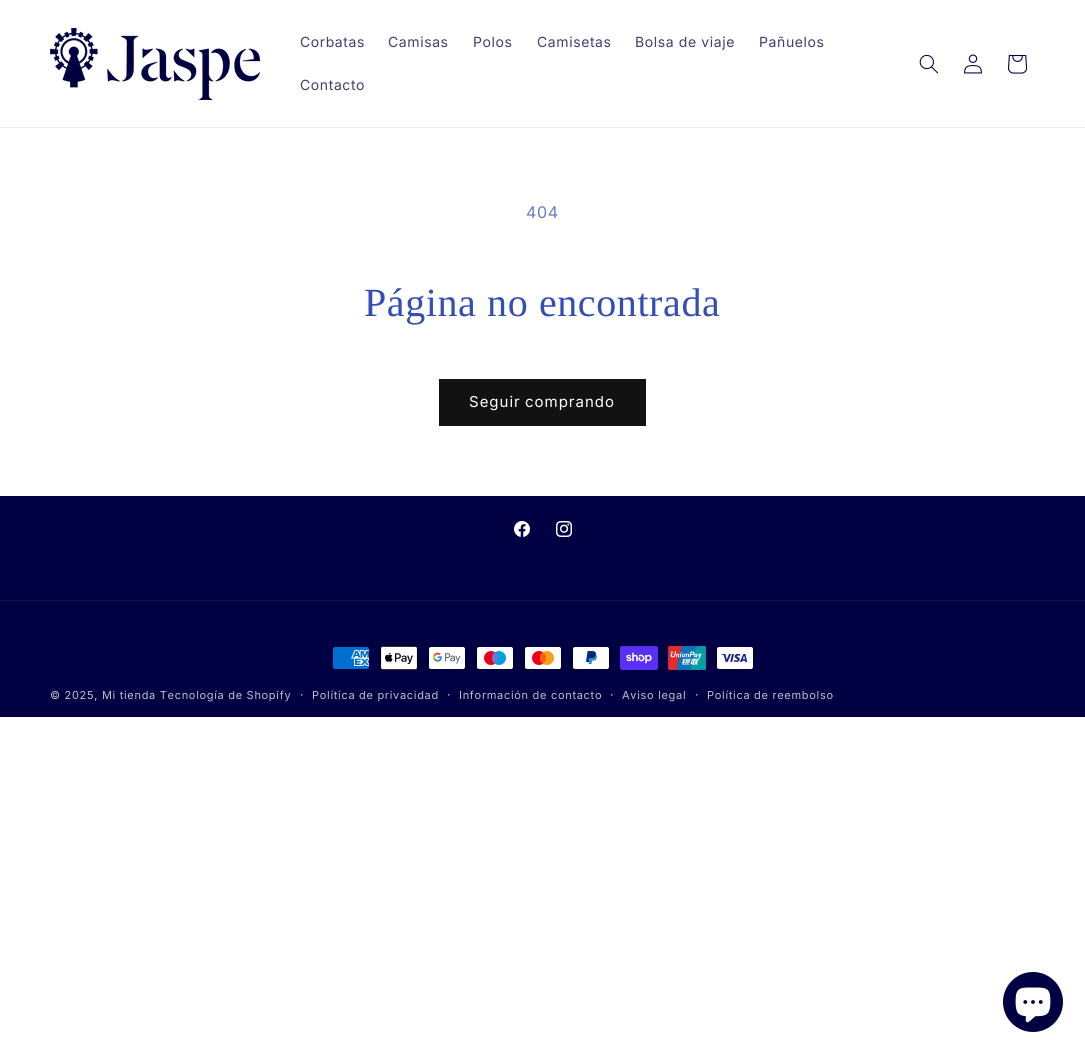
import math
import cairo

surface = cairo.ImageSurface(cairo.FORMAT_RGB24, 1085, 1053)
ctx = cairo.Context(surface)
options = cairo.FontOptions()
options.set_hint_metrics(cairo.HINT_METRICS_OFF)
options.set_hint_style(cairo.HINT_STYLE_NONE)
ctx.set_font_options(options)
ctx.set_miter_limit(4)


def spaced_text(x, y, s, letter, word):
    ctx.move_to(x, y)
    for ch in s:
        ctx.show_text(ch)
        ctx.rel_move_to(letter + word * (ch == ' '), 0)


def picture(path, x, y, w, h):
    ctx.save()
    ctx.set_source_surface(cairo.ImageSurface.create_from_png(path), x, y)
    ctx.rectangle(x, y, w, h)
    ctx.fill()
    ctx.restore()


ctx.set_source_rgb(1, 1, 1)
ctx.paint()
ctx.set_source_rgb(0.922, 0.922, 0.941)
ctx.rectangle(0, 127, 1085, 1)
ctx.fill()
picture("img1.png", 50, 28, 210, 72)
ctx.select_font_face("Inter")
ctx.set_font_size(14)
ctx.set_source_rgb(0.251, 0.251, 0.443)
spaced_text(300, 47, "Corbatas", 0.6, 0)
spaced_text(388, 47, "Camisas", 0.6, 0)
spaced_text(473, 47, "Polos", 0.6, 0)
spaced_text(537, 47, "Camisetas", 0.6, 0)
spaced_text(635, 47, "Bolsa de viaje", 0.6, 0)
spaced_text(759, 47, "Pañuelos", 0.6, 0)
spaced_text(300, 90, "Contacto", 0.6, 0)
picture("img2.png", 919, 54, 19, 20)
picture("img3.png", 964, 54, 18, 20)
picture("img4.png", 1008, 55, 20, 19)
ctx.set_font_size(16)
ctx.set_source_rgb(0.4, 0.482, 0.78)
spaced_text(526, 218, "404", 0.6, 0)
ctx.select_font_face("Liberation Serif")
ctx.set_font_size(40)
ctx.set_source_rgb(0.2, 0.31, 0.706)
spaced_text(364, 316, "Página no encontrada", 0.6, 0)
ctx.set_source_rgb(0.071, 0.071, 0.071)
ctx.rectangle(439, 379, 207, 47)
ctx.fill()
ctx.select_font_face("Inter")
ctx.set_font_size(15)
ctx.set_source_rgb(1, 1, 1)
spaced_text(469, 407, "Seguir comprando", 1, -1)
ctx.set_source_rgb(0, 0, 0.259)
ctx.rectangle(0, 496, 1085, 221)
ctx.fill()
picture("img5.png", 514, 521, 16, 16)
picture("img6.png", 556, 521, 16, 16)
ctx.set_source_rgb(0.078, 0.078, 0.318)
ctx.rectangle(0, 600, 1085, 1)
ctx.fill()
picture("img7.png", 332, 646, 38, 24)
picture("img8.png", 380, 646, 38, 24)
picture("img9.png", 428, 646, 38, 24)
picture("img10.png", 476, 646, 38, 24)
picture("img11.png", 524, 646, 38, 24)
picture("img12.png", 572, 646, 38, 24)
picture("img13.png", 620, 646, 38, 24)
picture("img14.png", 668, 646, 38, 24)
picture("img15.png", 716, 646, 38, 24)
ctx.set_font_size(11)
ctx.set_source_rgb(0.749, 0.749, 0.816)
spaced_text(50, 699, "© 2025, Mi tienda Tecnología de Shopify", 0.7, 0)
ctx.set_font_size(12)
spaced_text(300, 699, "·", 0.7, 0)
ctx.set_font_size(11)
spaced_text(312, 699, "Política de privacidad", 0.7, 0)
ctx.set_font_size(12)
spaced_text(447, 699, "·", 0.7, 0)
ctx.set_font_size(11)
spaced_text(459, 699, "Información de contacto", 0.7, 0)
ctx.set_font_size(12)
spaced_text(610, 699, "·", 0.7, 0)
ctx.set_font_size(11)
spaced_text(622, 699, "Aviso legal", 0.7, 0)
ctx.set_font_size(12)
spaced_text(695, 699, "·", 0.7, 0)
ctx.set_font_size(11)
spaced_text(707, 699, "Política de reembolso", 0.7, 0)
ctx.set_source_rgb(0, 0, 0.259)
ctx.new_path()
ctx.arc(1033, 1002, 30, 0, 2 * math.pi)
ctx.fill()
picture("img16.png", 1015, 987, 36, 36)
surface.write_to_png("page.png")
